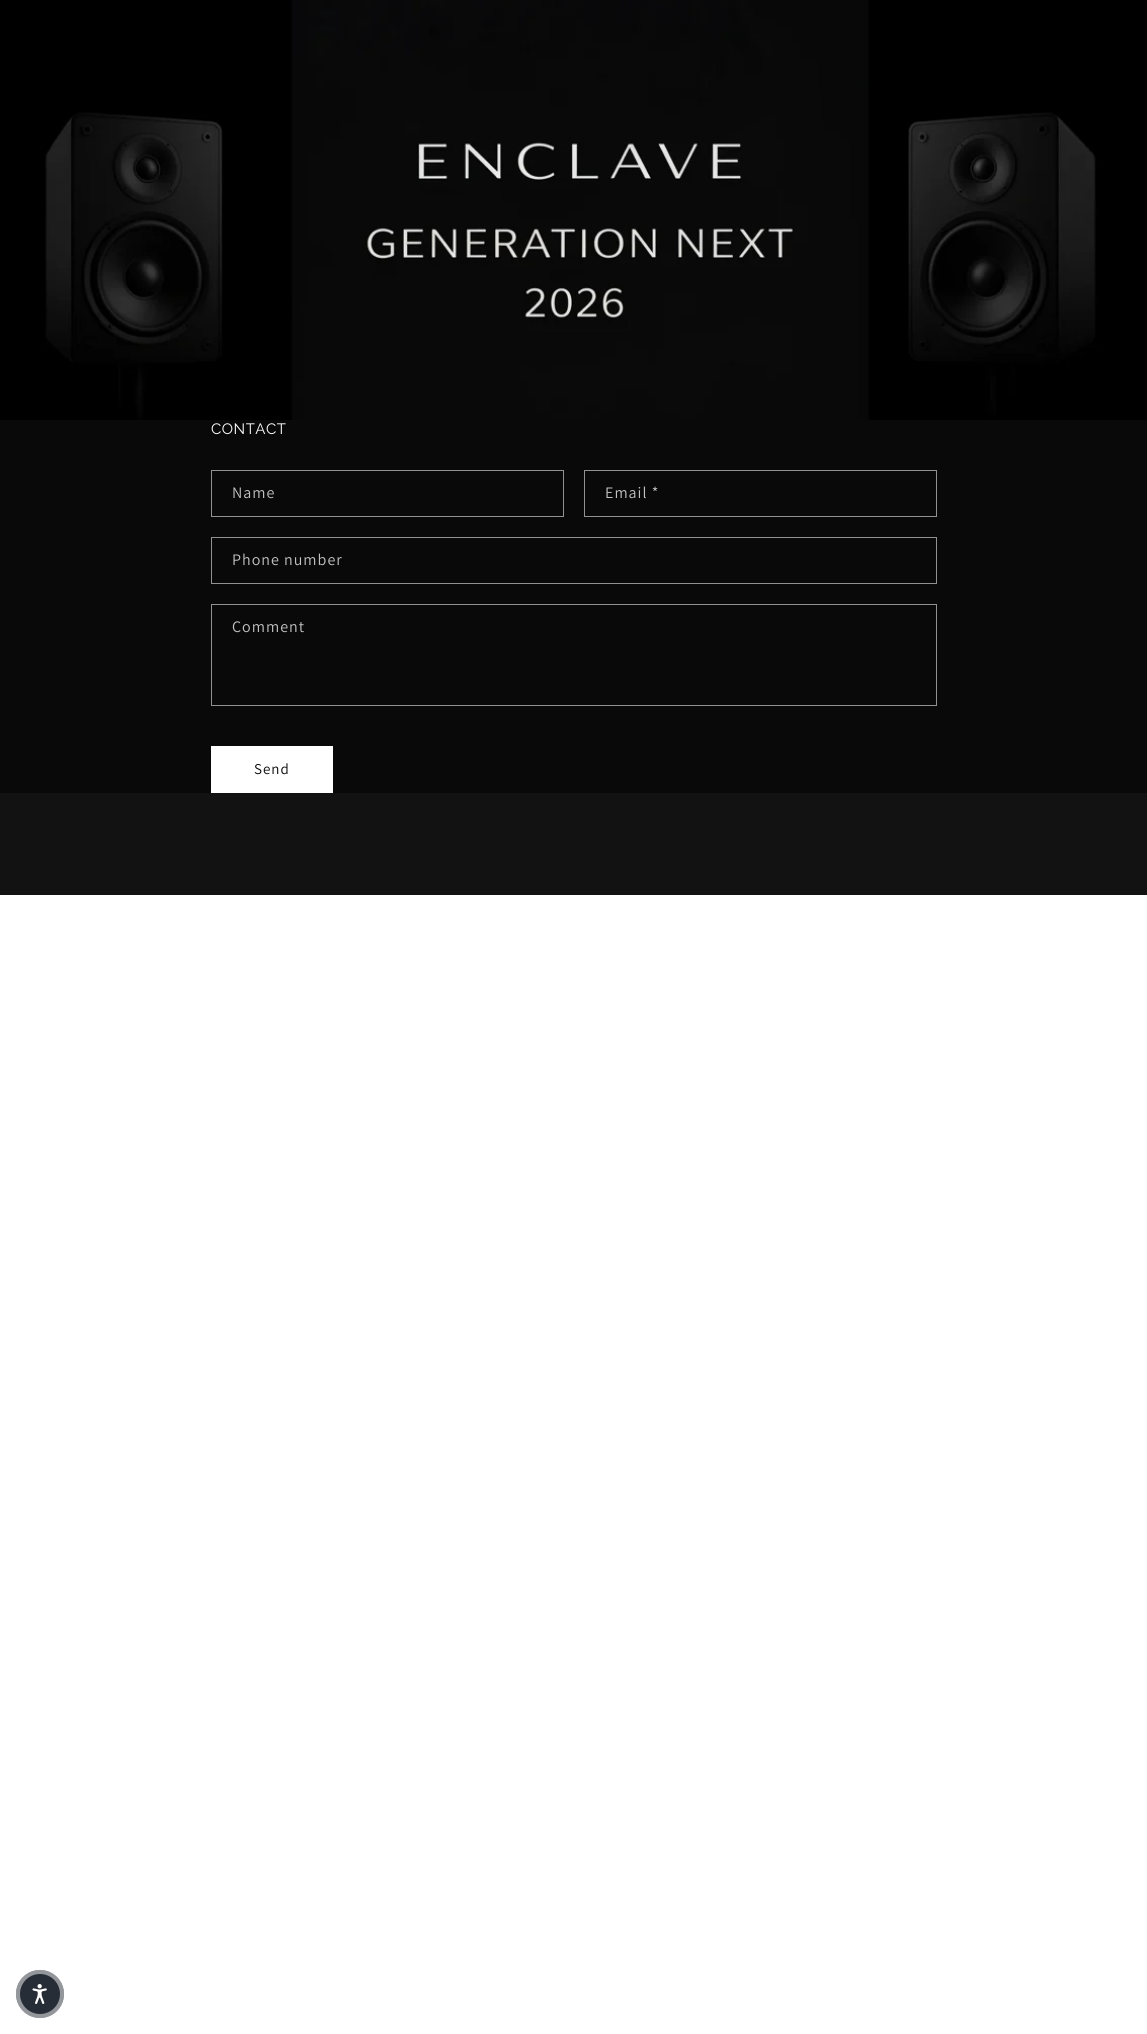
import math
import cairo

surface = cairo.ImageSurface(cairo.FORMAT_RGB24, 1147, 2034)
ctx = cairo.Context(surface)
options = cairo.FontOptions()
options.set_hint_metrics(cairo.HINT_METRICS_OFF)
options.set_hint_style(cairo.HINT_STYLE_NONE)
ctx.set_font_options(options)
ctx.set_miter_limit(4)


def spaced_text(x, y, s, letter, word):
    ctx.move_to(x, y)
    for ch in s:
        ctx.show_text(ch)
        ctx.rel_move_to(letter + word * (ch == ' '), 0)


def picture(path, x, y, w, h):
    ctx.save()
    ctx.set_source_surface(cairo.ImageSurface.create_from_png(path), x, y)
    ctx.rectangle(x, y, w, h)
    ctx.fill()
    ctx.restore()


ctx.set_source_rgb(1, 1, 1)
ctx.paint()
picture("img1.png", 0, 0, 1147, 420)
ctx.set_source_rgb(0.039, 0.039, 0.039)
ctx.rectangle(0, 420, 1147, 373)
ctx.fill()
ctx.select_font_face("Raleway")
ctx.set_font_size(15)
ctx.set_source_rgb(1, 1, 1)
spaced_text(211, 434, "CONTACT", 0.5, 0)
ctx.rectangle(211.5, 470.5, 352, 46)
ctx.set_source_rgb(0.569, 0.569, 0.569)
ctx.set_line_width(1)
ctx.stroke()
ctx.select_font_face("Assistant")
ctx.set_font_size(16)
ctx.set_source_rgb(0.761, 0.761, 0.761)
spaced_text(232, 498, "Name", 1, 0)
ctx.rectangle(584.5, 470.5, 352, 46)
ctx.set_source_rgb(0.569, 0.569, 0.569)
ctx.stroke()
ctx.set_source_rgb(0.761, 0.761, 0.761)
spaced_text(605, 498, "Email *", 1, 0)
ctx.rectangle(211.5, 537.5, 725, 46)
ctx.set_source_rgb(0.569, 0.569, 0.569)
ctx.stroke()
ctx.set_source_rgb(0.761, 0.761, 0.761)
spaced_text(232, 565, "Phone number", 1, 0)
ctx.rectangle(211.5, 604.5, 725, 101)
ctx.set_source_rgb(0.569, 0.569, 0.569)
ctx.stroke()
ctx.set_source_rgb(0.761, 0.761, 0.761)
spaced_text(232, 632, "Comment", 1, 0)
ctx.set_source_rgb(1, 1, 1)
ctx.rectangle(211, 746, 122, 47)
ctx.fill()
ctx.set_font_size(15)
ctx.set_source_rgb(0.039, 0.039, 0.039)
spaced_text(254, 774, "Send", 1, 0)
ctx.set_source_rgb(0.071, 0.071, 0.071)
ctx.rectangle(0, 793, 1147, 102)
ctx.fill()
ctx.set_source_rgb(0.153, 0.176, 0.212)
ctx.arc(40, 1994, 24, 0, 2 * math.pi)
ctx.fill()
ctx.arc(40, 1994, 22, 0, 2 * math.pi)
ctx.set_source_rgba(1, 1, 1, 0.5)
ctx.set_line_width(4)
ctx.stroke()
picture("img2.png", 32, 1984, 15, 20)
surface.write_to_png("page.png")
